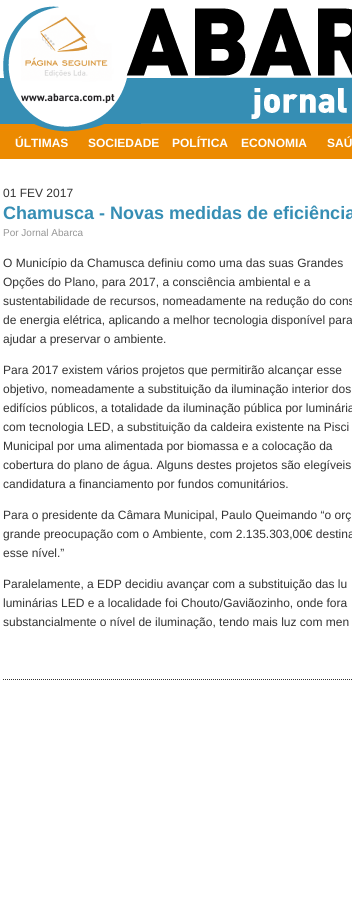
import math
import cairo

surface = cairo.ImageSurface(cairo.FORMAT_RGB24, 352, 904)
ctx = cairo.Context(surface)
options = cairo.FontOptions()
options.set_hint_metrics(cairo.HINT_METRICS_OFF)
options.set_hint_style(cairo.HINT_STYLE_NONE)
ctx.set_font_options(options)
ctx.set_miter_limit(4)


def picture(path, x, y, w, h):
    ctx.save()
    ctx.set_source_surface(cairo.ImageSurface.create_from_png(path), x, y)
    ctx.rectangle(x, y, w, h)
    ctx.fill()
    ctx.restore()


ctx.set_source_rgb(1, 1, 1)
ctx.paint()
picture("img1.png", 0, 123, 352, 36)
ctx.set_source_rgb(0.212, 0.557, 0.706)
ctx.rectangle(0, 78, 141, 46)
ctx.fill()
picture("img2.png", 3, 6, 349, 126)
ctx.select_font_face("Liberation Sans", cairo.FONT_SLANT_NORMAL, cairo.FONT_WEIGHT_BOLD)
ctx.set_font_size(12)
ctx.set_source_rgb(1, 1, 1)
ctx.move_to(15, 147)
ctx.show_text("ÚLTIMAS")
ctx.move_to(88, 147)
ctx.show_text("SOCIEDADE")
ctx.move_to(172, 147)
ctx.show_text("POLÍTICA")
ctx.move_to(241, 147)
ctx.show_text("ECONOMIA")
ctx.move_to(327, 147)
ctx.show_text("SAÚ")
ctx.select_font_face("Liberation Sans")
ctx.set_source_rgb(0.2, 0.2, 0.2)
ctx.move_to(3, 197)
ctx.show_text("01 FEV 2017")
ctx.select_font_face("Liberation Sans", cairo.FONT_SLANT_NORMAL, cairo.FONT_WEIGHT_BOLD)
ctx.set_font_size(18)
ctx.set_source_rgb(0.212, 0.557, 0.706)
ctx.move_to(3, 219)
ctx.show_text("Chamusca - Novas medidas de eficiência")
ctx.select_font_face("Liberation Sans")
ctx.set_font_size(10)
ctx.set_source_rgb(0.588, 0.588, 0.588)
ctx.move_to(3, 236)
ctx.show_text("Por Jornal Abarca")
ctx.set_font_size(12)
ctx.set_source_rgb(0.2, 0.2, 0.2)
ctx.move_to(3, 267)
ctx.show_text("O Município da Chamusca definiu como uma das suas Grandes")
ctx.move_to(3, 286)
ctx.show_text("Opções do Plano, para 2017, a consciência ambiental e a")
ctx.move_to(3, 305)
ctx.show_text("sustentabilidade de recursos, nomeadamente na redução do cons")
ctx.move_to(3, 324)
ctx.show_text("de energia elétrica, aplicando a melhor tecnologia disponível para")
ctx.move_to(3, 343)
ctx.show_text("ajudar a preservar o ambiente.")
ctx.move_to(3, 374)
ctx.show_text("Para 2017 existem vários projetos que permitirão alcançar esse")
ctx.move_to(3, 393)
ctx.show_text("objetivo, nomeadamente a substituição da iluminação interior dos")
ctx.move_to(3, 412)
ctx.show_text("edifícios públicos, a totalidade da iluminação pública por luminária")
ctx.move_to(3, 431)
ctx.show_text("com tecnologia LED, a substituição da caldeira existente na Pisci")
ctx.move_to(3, 450)
ctx.show_text("Municipal por uma alimentada por biomassa e a colocação da")
ctx.move_to(3, 469)
ctx.show_text("cobertura do plano de água. Alguns destes projetos são elegíveis")
ctx.move_to(3, 488)
ctx.show_text("candidatura a financiamento por fundos comunitários.")
ctx.move_to(3, 519)
ctx.show_text("Para o presidente da Câmara Municipal, Paulo Queimando “o orç")
ctx.move_to(3, 538)
ctx.show_text("grande preocupação com o Ambiente, com 2.135.303,00€ destina")
ctx.move_to(3, 557)
ctx.show_text("esse nível.”")
ctx.move_to(3, 588)
ctx.show_text("Paralelamente, a EDP decidiu avançar com a substituição das lu")
ctx.move_to(3, 607)
ctx.show_text("luminárias LED e a localidade foi Chouto/Gaviãozinho, onde fora")
ctx.move_to(3, 626)
ctx.show_text("substancialmente o nível de iluminação, tendo mais luz com men")
ctx.new_path()
ctx.move_to(3, 679.5)
ctx.line_to(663, 679.5)
ctx.set_line_width(1)
ctx.set_dash([1, 1])
ctx.stroke()
surface.write_to_png("page.png")
